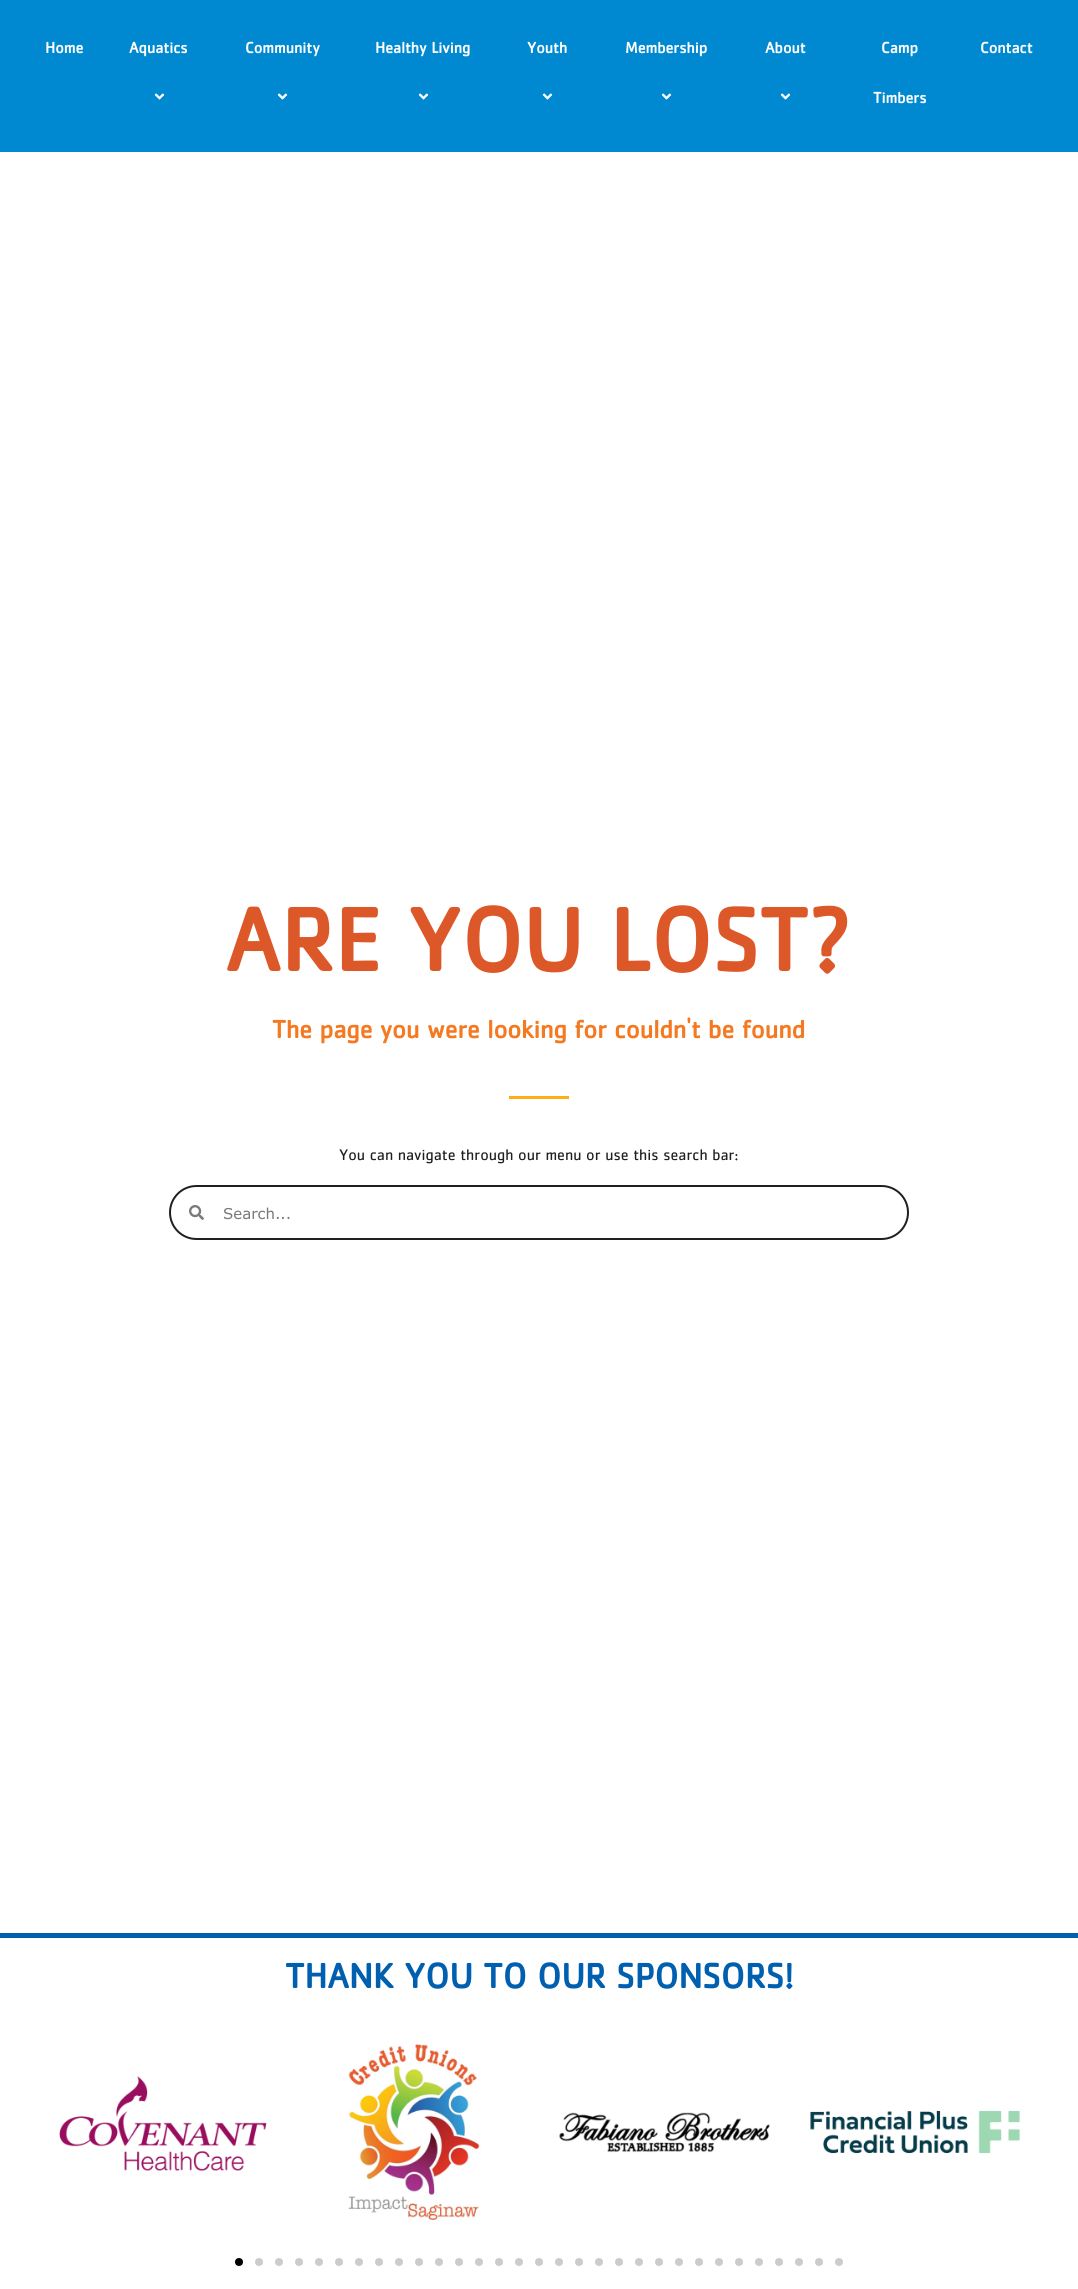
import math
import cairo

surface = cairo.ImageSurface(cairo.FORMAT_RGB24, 1078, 2289)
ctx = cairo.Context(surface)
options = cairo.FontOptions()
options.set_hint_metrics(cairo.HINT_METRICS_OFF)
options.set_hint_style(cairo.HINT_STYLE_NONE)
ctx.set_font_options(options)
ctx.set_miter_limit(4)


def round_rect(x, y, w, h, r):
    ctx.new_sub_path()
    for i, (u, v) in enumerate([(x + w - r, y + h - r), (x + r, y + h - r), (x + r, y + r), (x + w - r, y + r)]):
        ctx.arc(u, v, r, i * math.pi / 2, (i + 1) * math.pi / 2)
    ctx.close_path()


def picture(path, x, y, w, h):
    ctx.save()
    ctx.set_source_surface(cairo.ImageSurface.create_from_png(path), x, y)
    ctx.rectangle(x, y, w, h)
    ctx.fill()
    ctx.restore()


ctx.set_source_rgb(1, 1, 1)
ctx.paint()
ctx.set_source_rgb(0, 0.537, 0.816)
ctx.rectangle(0, 0, 1078, 152)
ctx.fill()
ctx.select_font_face("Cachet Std", cairo.FONT_SLANT_NORMAL, cairo.FONT_WEIGHT_BOLD)
ctx.set_font_size(16)
ctx.set_source_rgb(1, 1, 1)
ctx.move_to(45, 53)
ctx.show_text("Home")
ctx.move_to(129, 53)
ctx.show_text("Aquatics")
picture("img1.png", 154, 93, 11, 7)
ctx.move_to(245, 53)
ctx.show_text("Community")
picture("img1.png", 277, 93, 11, 7)
ctx.move_to(375, 53)
ctx.show_text("Healthy Living")
picture("img1.png", 418, 93, 11, 7)
ctx.move_to(527, 53)
ctx.show_text("Youth")
picture("img1.png", 542, 93, 11, 7)
ctx.move_to(625, 53)
ctx.show_text("Membership")
picture("img1.png", 661, 93, 11, 7)
ctx.move_to(765, 53)
ctx.show_text("About")
picture("img1.png", 780, 93, 11, 7)
ctx.move_to(881, 53)
ctx.show_text("Camp")
ctx.move_to(873, 103)
ctx.show_text("Timbers")
ctx.move_to(980, 53)
ctx.show_text("Contact")
ctx.set_font_size(92)
ctx.set_source_rgb(0.867, 0.345, 0.157)
ctx.move_to(225, 971)
ctx.show_text("ARE YOU LOST?")
ctx.set_font_size(26)
ctx.set_source_rgb(0.957, 0.475, 0.125)
ctx.move_to(272, 1038)
ctx.show_text("The page you were looking for couldn't be found")
ctx.set_source_rgb(0.988, 0.686, 0.09)
ctx.rectangle(509, 1096, 60, 3)
ctx.fill()
ctx.select_font_face("Cachet Std")
ctx.set_font_size(16)
ctx.set_source_rgb(0.137, 0.122, 0.125)
ctx.move_to(339, 1160)
ctx.show_text("You can navigate through our menu or use this search bar:")
round_rect(170, 1186, 738, 53, 26.5)
ctx.stroke()
picture("img2.png", 189, 1205, 15, 15)
ctx.select_font_face("Verdana")
ctx.set_font_size(15)
ctx.set_source_rgb(0.482, 0.475, 0.475)
ctx.move_to(223, 1219)
ctx.show_text("Search...")
ctx.set_source_rgb(0, 0.376, 0.686)
ctx.rectangle(0, 1933, 1078, 5)
ctx.fill()
ctx.select_font_face("Cachet Std", cairo.FONT_SLANT_NORMAL, cairo.FONT_WEIGHT_BOLD)
ctx.set_font_size(36)
ctx.move_to(285, 1988)
ctx.show_text("THANK YOU TO OUR SPONSORS!")
picture("img3.png", 59, 2076, 208, 95)
picture("img4.png", 348, 2044, 133, 177)
picture("img5.png", 559, 2112, 211, 41)
picture("img6.png", 810, 2110, 210, 44)
ctx.set_source_rgb(0, 0, 0)
ctx.arc(239, 2262, 4, 0, 2 * math.pi)
ctx.fill()
ctx.set_source_rgb(0.8, 0.8, 0.8)
ctx.arc(259, 2262, 4, 0, 2 * math.pi)
ctx.fill()
ctx.arc(279, 2262, 4, 0, 2 * math.pi)
ctx.fill()
ctx.arc(299, 2262, 4, 0, 2 * math.pi)
ctx.fill()
ctx.arc(319, 2262, 4, 0, 2 * math.pi)
ctx.fill()
ctx.arc(339, 2262, 4, 0, 2 * math.pi)
ctx.fill()
ctx.arc(359, 2262, 4, 0, 2 * math.pi)
ctx.fill()
ctx.arc(379, 2262, 4, 0, 2 * math.pi)
ctx.fill()
ctx.arc(399, 2262, 4, 0, 2 * math.pi)
ctx.fill()
ctx.arc(419, 2262, 4, 0, 2 * math.pi)
ctx.fill()
ctx.arc(439, 2262, 4, 0, 2 * math.pi)
ctx.fill()
ctx.arc(459, 2262, 4, 0, 2 * math.pi)
ctx.fill()
ctx.arc(479, 2262, 4, 0, 2 * math.pi)
ctx.fill()
ctx.arc(499, 2262, 4, 0, 2 * math.pi)
ctx.fill()
ctx.arc(519, 2262, 4, 0, 2 * math.pi)
ctx.fill()
ctx.arc(539, 2262, 4, 0, 2 * math.pi)
ctx.fill()
ctx.arc(559, 2262, 4, 0, 2 * math.pi)
ctx.fill()
ctx.arc(579, 2262, 4, 0, 2 * math.pi)
ctx.fill()
ctx.arc(599, 2262, 4, 0, 2 * math.pi)
ctx.fill()
ctx.arc(619, 2262, 4, 0, 2 * math.pi)
ctx.fill()
ctx.arc(639, 2262, 4, 0, 2 * math.pi)
ctx.fill()
ctx.arc(659, 2262, 4, 0, 2 * math.pi)
ctx.fill()
ctx.arc(679, 2262, 4, 0, 2 * math.pi)
ctx.fill()
ctx.arc(699, 2262, 4, 0, 2 * math.pi)
ctx.fill()
ctx.arc(719, 2262, 4, 0, 2 * math.pi)
ctx.fill()
ctx.arc(739, 2262, 4, 0, 2 * math.pi)
ctx.fill()
ctx.arc(759, 2262, 4, 0, 2 * math.pi)
ctx.fill()
ctx.arc(779, 2262, 4, 0, 2 * math.pi)
ctx.fill()
ctx.arc(799, 2262, 4, 0, 2 * math.pi)
ctx.fill()
ctx.arc(819, 2262, 4, 0, 2 * math.pi)
ctx.fill()
ctx.arc(839, 2262, 4, 0, 2 * math.pi)
ctx.fill()
surface.write_to_png("page.png")
